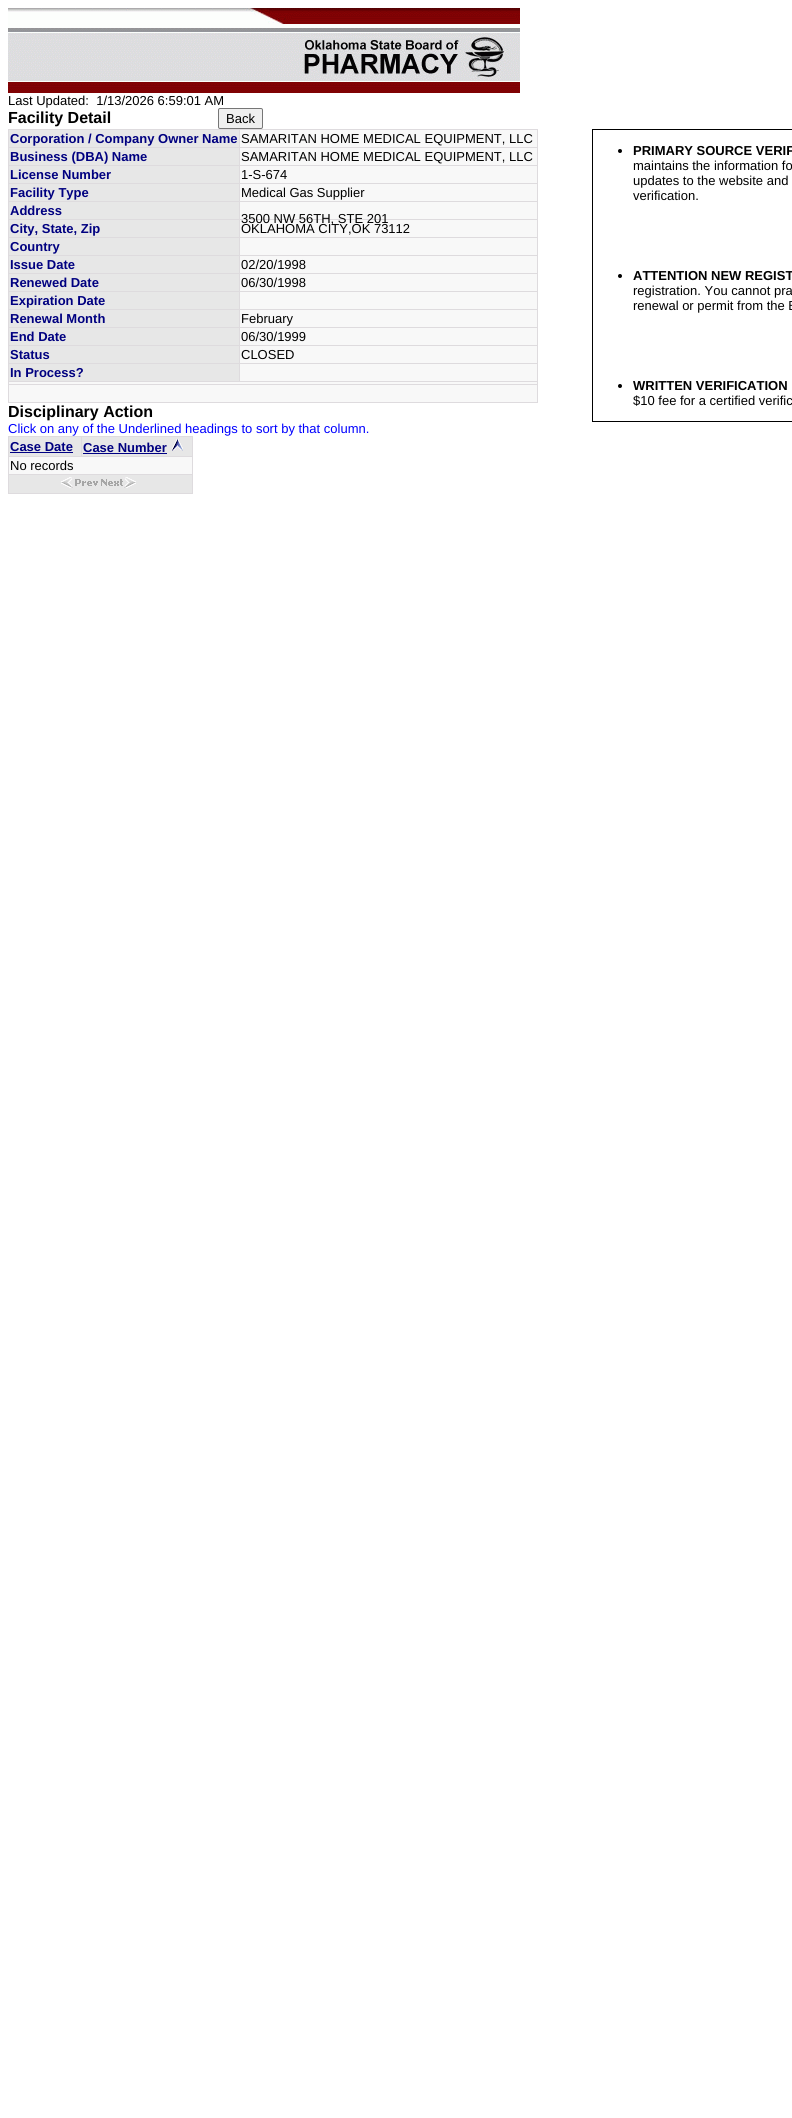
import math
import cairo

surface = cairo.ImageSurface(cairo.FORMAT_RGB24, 792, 2118)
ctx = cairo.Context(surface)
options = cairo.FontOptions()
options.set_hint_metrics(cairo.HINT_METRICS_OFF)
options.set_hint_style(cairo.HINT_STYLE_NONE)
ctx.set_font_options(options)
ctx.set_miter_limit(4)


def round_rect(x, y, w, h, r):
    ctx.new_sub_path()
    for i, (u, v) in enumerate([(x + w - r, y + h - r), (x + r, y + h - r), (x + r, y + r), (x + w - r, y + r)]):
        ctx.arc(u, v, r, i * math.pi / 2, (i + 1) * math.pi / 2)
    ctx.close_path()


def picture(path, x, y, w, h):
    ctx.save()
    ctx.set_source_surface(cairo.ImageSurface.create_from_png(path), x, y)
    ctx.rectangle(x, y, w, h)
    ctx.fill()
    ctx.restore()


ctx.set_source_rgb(1, 1, 1)
ctx.paint()
picture("img1.png", 8, 8, 512, 85)
ctx.select_font_face("Liberation Sans")
ctx.set_font_size(13)
ctx.set_source_rgb(0, 0, 0)
ctx.move_to(8, 105)
ctx.show_text("Last Updated:  1/13/2026 6:59:01 AM")
ctx.select_font_face("Liberation Sans", cairo.FONT_SLANT_NORMAL, cairo.FONT_WEIGHT_BOLD)
ctx.set_font_size(16)
ctx.move_to(8, 123)
ctx.show_text("Facility Detail")
ctx.set_source_rgb(0.937, 0.937, 0.937)
round_rect(218.5, 108.5, 44, 20, 1.5)
ctx.fill_preserve()
ctx.set_source_rgb(0.463, 0.463, 0.463)
ctx.set_line_width(1)
ctx.stroke()
ctx.select_font_face("Liberation Sans")
ctx.set_font_size(13)
ctx.set_source_rgb(0, 0, 0)
ctx.move_to(226, 123)
ctx.show_text("Back")
ctx.set_source_rgb(0.871, 0.859, 0.871)
ctx.rectangle(8, 129, 530, 274)
ctx.fill()
ctx.set_source_rgb(0.906, 0.906, 0.906)
ctx.rectangle(9, 130, 230, 17)
ctx.fill()
ctx.select_font_face("Liberation Sans", cairo.FONT_SLANT_NORMAL, cairo.FONT_WEIGHT_BOLD)
ctx.set_source_rgb(0, 0, 0.502)
ctx.move_to(10, 143)
ctx.show_text("Corporation / Company Owner Name")
ctx.set_source_rgb(0.969, 0.969, 0.969)
ctx.rectangle(240, 130, 297, 17)
ctx.fill()
ctx.select_font_face("Liberation Sans")
ctx.set_source_rgb(0, 0, 0)
ctx.move_to(241, 143)
ctx.show_text("SAMARITAN HOME MEDICAL EQUIPMENT, LLC")
ctx.set_source_rgb(0.906, 0.906, 0.906)
ctx.rectangle(9, 148, 230, 17)
ctx.fill()
ctx.select_font_face("Liberation Sans", cairo.FONT_SLANT_NORMAL, cairo.FONT_WEIGHT_BOLD)
ctx.set_source_rgb(0, 0, 0.502)
ctx.move_to(10, 161)
ctx.show_text("Business (DBA) Name")
ctx.set_source_rgb(0.969, 0.969, 0.969)
ctx.rectangle(240, 148, 297, 17)
ctx.fill()
ctx.select_font_face("Liberation Sans")
ctx.set_source_rgb(0, 0, 0)
ctx.move_to(241, 161)
ctx.show_text("SAMARITAN HOME MEDICAL EQUIPMENT, LLC")
ctx.set_source_rgb(0.906, 0.906, 0.906)
ctx.rectangle(9, 166, 230, 17)
ctx.fill()
ctx.select_font_face("Liberation Sans", cairo.FONT_SLANT_NORMAL, cairo.FONT_WEIGHT_BOLD)
ctx.set_source_rgb(0, 0, 0.502)
ctx.move_to(10, 179)
ctx.show_text("License Number")
ctx.set_source_rgb(0.969, 0.969, 0.969)
ctx.rectangle(240, 166, 297, 17)
ctx.fill()
ctx.select_font_face("Liberation Sans")
ctx.set_source_rgb(0, 0, 0)
ctx.move_to(241, 179)
ctx.show_text("1-S-674")
ctx.set_source_rgb(0.906, 0.906, 0.906)
ctx.rectangle(9, 184, 230, 17)
ctx.fill()
ctx.select_font_face("Liberation Sans", cairo.FONT_SLANT_NORMAL, cairo.FONT_WEIGHT_BOLD)
ctx.set_source_rgb(0, 0, 0.502)
ctx.move_to(10, 197)
ctx.show_text("Facility Type")
ctx.set_source_rgb(0.969, 0.969, 0.969)
ctx.rectangle(240, 184, 297, 17)
ctx.fill()
ctx.select_font_face("Liberation Sans")
ctx.set_source_rgb(0, 0, 0)
ctx.move_to(241, 197)
ctx.show_text("Medical Gas Supplier")
ctx.set_source_rgb(0.906, 0.906, 0.906)
ctx.rectangle(9, 202, 230, 17)
ctx.fill()
ctx.select_font_face("Liberation Sans", cairo.FONT_SLANT_NORMAL, cairo.FONT_WEIGHT_BOLD)
ctx.set_source_rgb(0, 0, 0.502)
ctx.move_to(10, 215)
ctx.show_text("Address")
ctx.set_source_rgb(0.969, 0.969, 0.969)
ctx.rectangle(240, 202, 297, 17)
ctx.fill()
ctx.rectangle(240, 220, 297, 17)
ctx.fill()
ctx.select_font_face("Liberation Sans")
ctx.set_source_rgb(0, 0, 0)
ctx.move_to(241, 223)
ctx.show_text("3500 NW 56TH, STE 201")
ctx.set_source_rgb(0.906, 0.906, 0.906)
ctx.rectangle(9, 220, 230, 17)
ctx.fill()
ctx.select_font_face("Liberation Sans", cairo.FONT_SLANT_NORMAL, cairo.FONT_WEIGHT_BOLD)
ctx.set_source_rgb(0, 0, 0.502)
ctx.move_to(10, 233)
ctx.show_text("City, State, Zip")
ctx.select_font_face("Liberation Sans")
ctx.set_source_rgb(0, 0, 0)
ctx.move_to(241, 233)
ctx.show_text("OKLAHOMA CITY,OK 73112")
ctx.set_source_rgb(0.906, 0.906, 0.906)
ctx.rectangle(9, 238, 230, 17)
ctx.fill()
ctx.select_font_face("Liberation Sans", cairo.FONT_SLANT_NORMAL, cairo.FONT_WEIGHT_BOLD)
ctx.set_source_rgb(0, 0, 0.502)
ctx.move_to(10, 251)
ctx.show_text("Country")
ctx.set_source_rgb(0.969, 0.969, 0.969)
ctx.rectangle(240, 238, 297, 17)
ctx.fill()
ctx.set_source_rgb(0.906, 0.906, 0.906)
ctx.rectangle(9, 256, 230, 17)
ctx.fill()
ctx.set_source_rgb(0, 0, 0.502)
ctx.move_to(10, 269)
ctx.show_text("Issue Date")
ctx.set_source_rgb(0.969, 0.969, 0.969)
ctx.rectangle(240, 256, 297, 17)
ctx.fill()
ctx.select_font_face("Liberation Sans")
ctx.set_source_rgb(0, 0, 0)
ctx.move_to(241, 269)
ctx.show_text("02/20/1998")
ctx.set_source_rgb(0.906, 0.906, 0.906)
ctx.rectangle(9, 274, 230, 17)
ctx.fill()
ctx.select_font_face("Liberation Sans", cairo.FONT_SLANT_NORMAL, cairo.FONT_WEIGHT_BOLD)
ctx.set_source_rgb(0, 0, 0.502)
ctx.move_to(10, 287)
ctx.show_text("Renewed Date")
ctx.set_source_rgb(0.969, 0.969, 0.969)
ctx.rectangle(240, 274, 297, 17)
ctx.fill()
ctx.select_font_face("Liberation Sans")
ctx.set_source_rgb(0, 0, 0)
ctx.move_to(241, 287)
ctx.show_text("06/30/1998")
ctx.set_source_rgb(0.906, 0.906, 0.906)
ctx.rectangle(9, 292, 230, 17)
ctx.fill()
ctx.select_font_face("Liberation Sans", cairo.FONT_SLANT_NORMAL, cairo.FONT_WEIGHT_BOLD)
ctx.set_source_rgb(0, 0, 0.502)
ctx.move_to(10, 305)
ctx.show_text("Expiration Date")
ctx.set_source_rgb(0.969, 0.969, 0.969)
ctx.rectangle(240, 292, 297, 17)
ctx.fill()
ctx.set_source_rgb(0.906, 0.906, 0.906)
ctx.rectangle(9, 310, 230, 17)
ctx.fill()
ctx.set_source_rgb(0, 0, 0.502)
ctx.move_to(10, 323)
ctx.show_text("Renewal Month")
ctx.set_source_rgb(0.969, 0.969, 0.969)
ctx.rectangle(240, 310, 297, 17)
ctx.fill()
ctx.select_font_face("Liberation Sans")
ctx.set_source_rgb(0, 0, 0)
ctx.move_to(241, 323)
ctx.show_text("February")
ctx.set_source_rgb(0.906, 0.906, 0.906)
ctx.rectangle(9, 328, 230, 17)
ctx.fill()
ctx.select_font_face("Liberation Sans", cairo.FONT_SLANT_NORMAL, cairo.FONT_WEIGHT_BOLD)
ctx.set_source_rgb(0, 0, 0.502)
ctx.move_to(10, 341)
ctx.show_text("End Date")
ctx.set_source_rgb(0.969, 0.969, 0.969)
ctx.rectangle(240, 328, 297, 17)
ctx.fill()
ctx.select_font_face("Liberation Sans")
ctx.set_source_rgb(0, 0, 0)
ctx.move_to(241, 341)
ctx.show_text("06/30/1999")
ctx.set_source_rgb(0.906, 0.906, 0.906)
ctx.rectangle(9, 346, 230, 17)
ctx.fill()
ctx.select_font_face("Liberation Sans", cairo.FONT_SLANT_NORMAL, cairo.FONT_WEIGHT_BOLD)
ctx.set_source_rgb(0, 0, 0.502)
ctx.move_to(10, 359)
ctx.show_text("Status")
ctx.set_source_rgb(0.969, 0.969, 0.969)
ctx.rectangle(240, 346, 297, 17)
ctx.fill()
ctx.select_font_face("Liberation Sans")
ctx.set_source_rgb(0, 0, 0)
ctx.move_to(241, 359)
ctx.show_text("CLOSED")
ctx.set_source_rgb(0.906, 0.906, 0.906)
ctx.rectangle(9, 364, 230, 17)
ctx.fill()
ctx.select_font_face("Liberation Sans", cairo.FONT_SLANT_NORMAL, cairo.FONT_WEIGHT_BOLD)
ctx.set_source_rgb(0, 0, 0.502)
ctx.move_to(10, 377)
ctx.show_text("In Process?")
ctx.set_source_rgb(0.969, 0.969, 0.969)
ctx.rectangle(240, 364, 297, 17)
ctx.fill()
ctx.rectangle(9, 382, 528, 2)
ctx.fill()
ctx.rectangle(9, 385, 528, 17)
ctx.fill()
ctx.set_font_size(16)
ctx.set_source_rgb(0, 0, 0)
ctx.move_to(8, 417)
ctx.show_text("Disciplinary Action")
ctx.select_font_face("Liberation Sans")
ctx.set_font_size(13)
ctx.set_source_rgb(0, 0, 1)
ctx.move_to(8, 433)
ctx.show_text("Click on any of the Underlined headings to sort by that column.")
ctx.set_source_rgb(0.871, 0.859, 0.871)
ctx.rectangle(8, 436, 185, 58)
ctx.fill()
ctx.set_source_rgb(0.906, 0.906, 0.906)
ctx.rectangle(9, 437, 72, 19)
ctx.fill()
ctx.select_font_face("Liberation Sans", cairo.FONT_SLANT_NORMAL, cairo.FONT_WEIGHT_BOLD)
ctx.set_source_rgb(0, 0, 0.502)
ctx.move_to(10, 451)
ctx.show_text("Case Date")
ctx.set_source_rgb(0, 0, 0.518)
ctx.rectangle(10, 452, 63, 1)
ctx.fill()
ctx.set_source_rgb(0.906, 0.906, 0.906)
ctx.rectangle(82, 437, 110, 19)
ctx.fill()
ctx.set_source_rgb(0, 0, 0.502)
ctx.move_to(83, 452)
ctx.show_text("Case Number")
ctx.set_source_rgb(0, 0, 0.518)
ctx.rectangle(83, 453, 84, 1)
ctx.fill()
picture("img2.png", 172, 439, 11, 12)
ctx.set_source_rgb(0.969, 0.969, 0.969)
ctx.rectangle(9, 457, 183, 17)
ctx.fill()
ctx.select_font_face("Liberation Sans")
ctx.set_source_rgb(0, 0, 0)
ctx.move_to(10, 470)
ctx.show_text("No records")
ctx.set_source_rgb(0.906, 0.906, 0.906)
ctx.rectangle(9, 475, 183, 18)
ctx.fill()
picture("img3.png", 61, 477, 37, 11)
picture("img4.png", 101, 477, 35, 11)
ctx.rectangle(592.5, 129.5, 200, 292)
ctx.set_source_rgb(0, 0, 0)
ctx.stroke()
ctx.arc(620, 151, 2, 0, 2 * math.pi)
ctx.fill()
ctx.select_font_face("Liberation Sans", cairo.FONT_SLANT_NORMAL, cairo.FONT_WEIGHT_BOLD)
ctx.move_to(633, 155)
ctx.show_text("PRIMARY SOURCE VERIF")
ctx.select_font_face("Liberation Sans")
ctx.move_to(633, 170)
ctx.show_text("maintains the information fo")
ctx.move_to(633, 185)
ctx.show_text("updates to the website and")
ctx.move_to(633, 200)
ctx.show_text("verification.")
ctx.new_path()
ctx.arc(620, 276, 2, 0, 2 * math.pi)
ctx.fill()
ctx.select_font_face("Liberation Sans", cairo.FONT_SLANT_NORMAL, cairo.FONT_WEIGHT_BOLD)
ctx.move_to(633, 280)
ctx.show_text("ATTENTION NEW REGIST")
ctx.select_font_face("Liberation Sans")
ctx.move_to(633, 295)
ctx.show_text("registration. You cannot pra")
ctx.move_to(633, 310)
ctx.show_text("renewal or permit from the B")
ctx.new_path()
ctx.arc(620, 386, 2, 0, 2 * math.pi)
ctx.fill()
ctx.select_font_face("Liberation Sans", cairo.FONT_SLANT_NORMAL, cairo.FONT_WEIGHT_BOLD)
ctx.move_to(633, 390)
ctx.show_text("WRITTEN VERIFICATION")
ctx.select_font_face("Liberation Sans")
ctx.move_to(633, 405)
ctx.show_text("$10 fee for a certified verific")
surface.write_to_png("page.png")
